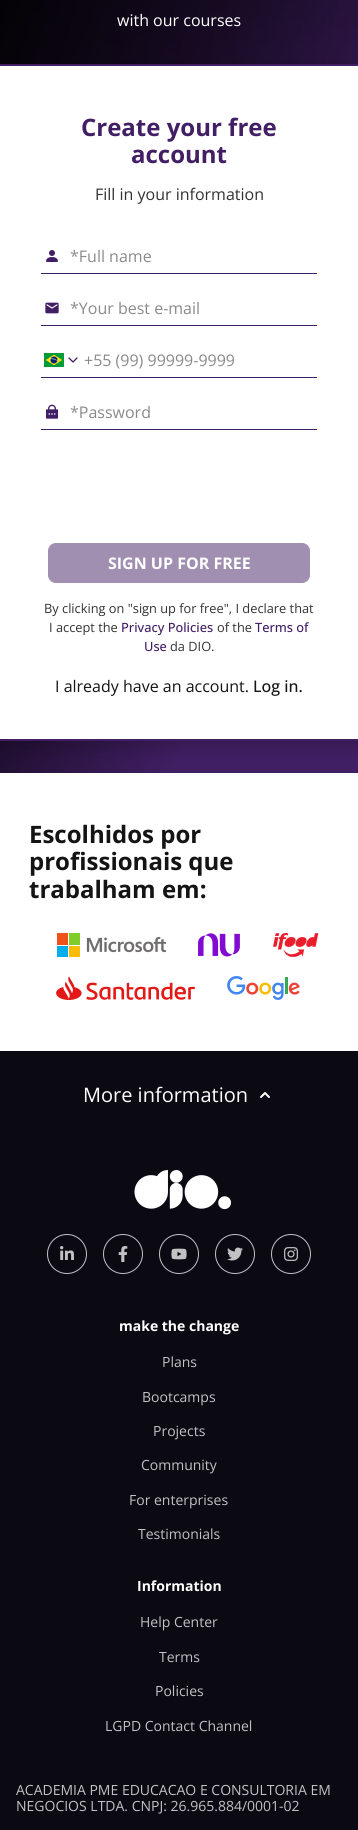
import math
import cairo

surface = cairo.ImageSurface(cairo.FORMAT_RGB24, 358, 1830)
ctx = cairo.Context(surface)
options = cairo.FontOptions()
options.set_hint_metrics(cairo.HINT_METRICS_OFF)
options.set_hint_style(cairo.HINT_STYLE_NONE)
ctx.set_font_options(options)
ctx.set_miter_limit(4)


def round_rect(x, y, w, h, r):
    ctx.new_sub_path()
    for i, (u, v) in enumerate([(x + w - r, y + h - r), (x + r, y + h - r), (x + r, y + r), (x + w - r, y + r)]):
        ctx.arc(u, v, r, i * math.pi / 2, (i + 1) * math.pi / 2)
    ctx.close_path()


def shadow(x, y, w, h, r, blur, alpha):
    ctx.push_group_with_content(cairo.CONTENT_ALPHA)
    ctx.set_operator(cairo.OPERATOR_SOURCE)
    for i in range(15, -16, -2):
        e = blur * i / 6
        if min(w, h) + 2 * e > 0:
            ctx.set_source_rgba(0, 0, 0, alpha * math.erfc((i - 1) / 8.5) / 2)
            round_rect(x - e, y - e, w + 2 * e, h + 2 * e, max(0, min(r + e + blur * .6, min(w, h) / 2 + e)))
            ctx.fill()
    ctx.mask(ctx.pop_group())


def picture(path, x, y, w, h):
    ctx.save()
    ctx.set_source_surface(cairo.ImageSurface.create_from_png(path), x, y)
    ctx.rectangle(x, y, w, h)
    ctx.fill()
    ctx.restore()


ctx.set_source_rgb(0.043, 0.039, 0.071)
ctx.paint()
gradient = cairo.LinearGradient(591, -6.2, -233, -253)
gradient.add_color_stop_rgba(0.2, 0.259, 0.122, 0.396, 1)
gradient.add_color_stop_rgba(0.41, 0.125, 0.059, 0.192, 1)
gradient.add_color_stop_rgba(0.56, 0.059, 0.027, 0.09, 1)
gradient.add_color_stop_rgba(0.72, 0, 0, 0, 1)
ctx.set_source(gradient)
ctx.rectangle(0, 0, 358, 773)
ctx.fill()
gradient = cairo.LinearGradient(179, 773, 179, -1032)
gradient.add_color_stop_rgba(0.11, 0, 0, 0, 0)
gradient.add_color_stop_rgba(0.19, 0, 0, 0, 0.05)
gradient.add_color_stop_rgba(0.32, 0, 0, 0, 0.16)
gradient.add_color_stop_rgba(0.5, 0, 0, 0, 0.41)
gradient.add_color_stop_rgba(0.81, 0, 0, 0, 0.69)
ctx.set_source(gradient)
ctx.rectangle(0, 0, 358, 65)
ctx.fill()
ctx.select_font_face("Open Sans")
ctx.set_font_size(16)
ctx.set_source_rgb(1, 1, 1)
ctx.move_to(117, 26)
ctx.show_text("with our courses")
ctx.rectangle(0, 773, 358, 278)
ctx.fill()
ctx.set_source_rgb(0, 0, 0)
shadow(-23, 71, 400, 677, 22, 9.5, 0.2)
ctx.set_source_rgb(1, 1, 1)
ctx.rectangle(-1, 65, 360, 675)
ctx.fill_preserve()
ctx.set_source_rgb(0.259, 0.122, 0.396)
ctx.stroke()
ctx.select_font_face("Open Sans", cairo.FONT_SLANT_NORMAL, cairo.FONT_WEIGHT_BOLD)
ctx.set_font_size(24)
ctx.move_to(81, 136)
ctx.show_text("Create your free")
ctx.move_to(131, 163)
ctx.show_text("account")
ctx.select_font_face("Open Sans")
ctx.set_font_size(16)
ctx.set_source_rgb(0.196, 0.196, 0.196)
ctx.move_to(95, 200)
ctx.show_text("Fill in your information")
ctx.set_source_rgb(0.259, 0.122, 0.396)
ctx.rectangle(41, 273, 276, 1)
ctx.fill()
picture("img1.png", 46, 250, 12, 12)
ctx.set_source_rgb(0.541, 0.541, 0.541)
ctx.move_to(70, 262)
ctx.show_text("*Full name")
ctx.set_source_rgb(0.259, 0.122, 0.396)
ctx.rectangle(41, 325, 276, 1)
ctx.fill()
picture("img2.png", 45, 302, 14, 12)
ctx.set_source_rgb(0.541, 0.541, 0.541)
ctx.move_to(70, 314)
ctx.show_text("*Your best e-mail")
picture("img3.png", 44, 353, 20, 14)
ctx.new_path()
ctx.move_to(69, 358)
ctx.line_to(73, 362)
ctx.line_to(77, 358)
ctx.set_source_rgb(0.259, 0.122, 0.396)
ctx.set_line_width(1.3)
ctx.set_line_cap(cairo.LINE_CAP_ROUND)
ctx.set_line_join(cairo.LINE_JOIN_ROUND)
ctx.stroke()
ctx.rectangle(41, 377, 276, 1)
ctx.fill()
ctx.set_source_rgb(0.541, 0.541, 0.541)
ctx.move_to(84, 366)
ctx.show_text("+55 (99) 99999-9999")
ctx.set_source_rgb(0.259, 0.122, 0.396)
ctx.rectangle(41, 429, 276, 1)
ctx.fill()
picture("img4.png", 46, 404, 12, 15)
ctx.set_source_rgb(0.541, 0.541, 0.541)
ctx.move_to(70, 418)
ctx.show_text("*Password")
ctx.set_source_rgb(0.631, 0.561, 0.698)
round_rect(48.5, 543.5, 261, 39, 7.5)
ctx.fill_preserve()
ctx.set_line_width(1)
ctx.set_line_cap(cairo.LINE_CAP_BUTT)
ctx.set_line_join(cairo.LINE_JOIN_MITER)
ctx.stroke()
ctx.select_font_face("Open Sans", cairo.FONT_SLANT_NORMAL, cairo.FONT_WEIGHT_BOLD)
ctx.set_source_rgb(1, 1, 1)
ctx.move_to(108, 569)
ctx.show_text("SIGN UP FOR FREE")
ctx.select_font_face("Open Sans")
ctx.set_font_size(12.8)
ctx.set_source_rgb(0.196, 0.196, 0.196)
ctx.move_to(44, 613)
ctx.show_text("By clicking on \"sign up for free\", I declare that")
ctx.move_to(49, 632)
ctx.show_text("I accept the")
ctx.select_font_face("Open Sans Medium")
ctx.set_source_rgb(0.259, 0.122, 0.396)
ctx.move_to(121, 632)
ctx.show_text("Privacy Policies")
ctx.select_font_face("Open Sans")
ctx.set_source_rgb(0.196, 0.196, 0.196)
ctx.move_to(217, 632)
ctx.show_text("of the")
ctx.select_font_face("Open Sans Medium")
ctx.set_source_rgb(0.259, 0.122, 0.396)
ctx.move_to(255, 632)
ctx.show_text("Terms of")
ctx.move_to(144, 651)
ctx.show_text("Use")
ctx.select_font_face("Open Sans")
ctx.set_source_rgb(0.196, 0.196, 0.196)
ctx.move_to(170, 651)
ctx.show_text("da DIO.")
ctx.set_font_size(16)
ctx.set_source_rgb(0.082, 0.082, 0.082)
ctx.move_to(55, 692)
ctx.show_text("I already have an account.")
ctx.select_font_face("Open Sans Medium")
ctx.move_to(253, 692)
ctx.show_text("Log in.")
ctx.select_font_face("Open Sans", cairo.FONT_SLANT_NORMAL, cairo.FONT_WEIGHT_BOLD)
ctx.set_font_size(24)
ctx.move_to(29, 843)
ctx.show_text("Escolhidos por")
ctx.move_to(29, 870)
ctx.show_text("profissionais que")
ctx.move_to(29, 898)
ctx.show_text("trabalham em:")
picture("img5.png", 57, 933, 109, 24)
picture("img6.png", 198, 933, 42, 24)
picture("img7.png", 273, 933, 46, 24)
picture("img8.png", 56, 976, 139, 24)
picture("img9.png", 227, 976, 73, 24)
ctx.select_font_face("Open Sans")
ctx.set_font_size(20)
ctx.set_source_rgb(1, 1, 1)
ctx.move_to(83, 1102)
ctx.show_text("More information")
picture("img10.png", 260, 1092, 10, 6)
picture("img11.png", 134, 1170, 98, 40)
ctx.arc(67, 1254, 19.5, 0, 2 * math.pi)
ctx.set_source_rgb(0.761, 0.761, 0.769)
ctx.stroke()
picture("img12.png", 60, 1246, 14, 14)
ctx.arc(123, 1254, 19.5, 0, 2 * math.pi)
ctx.stroke()
picture("img13.png", 118, 1246, 10, 16)
ctx.arc(179, 1254, 19.5, 0, 2 * math.pi)
ctx.stroke()
picture("img14.png", 171, 1248, 16, 12)
ctx.arc(235, 1254, 19.5, 0, 2 * math.pi)
ctx.stroke()
picture("img15.png", 227, 1247, 16, 14)
ctx.arc(291, 1254, 19.5, 0, 2 * math.pi)
ctx.stroke()
picture("img16.png", 284, 1247, 14, 14)
ctx.select_font_face("Open Sans", cairo.FONT_SLANT_NORMAL, cairo.FONT_WEIGHT_BOLD)
ctx.set_font_size(14)
ctx.set_source_rgb(1, 1, 1)
ctx.move_to(119, 1331)
ctx.show_text("make the change")
ctx.select_font_face("Open Sans")
ctx.set_source_rgb(0.761, 0.761, 0.769)
ctx.move_to(162, 1367)
ctx.show_text("Plans")
ctx.move_to(142, 1402)
ctx.show_text("Bootcamps")
ctx.move_to(153, 1436)
ctx.show_text("Projects")
ctx.move_to(141, 1470)
ctx.show_text("Community")
ctx.move_to(129, 1505)
ctx.show_text("For enterprises")
ctx.move_to(138, 1539)
ctx.show_text("Testimonials")
ctx.select_font_face("Open Sans", cairo.FONT_SLANT_NORMAL, cairo.FONT_WEIGHT_BOLD)
ctx.set_source_rgb(1, 1, 1)
ctx.move_to(137, 1591)
ctx.show_text("Information")
ctx.select_font_face("Open Sans")
ctx.set_source_rgb(0.761, 0.761, 0.769)
ctx.move_to(140, 1627)
ctx.show_text("Help Center")
ctx.move_to(159, 1662)
ctx.show_text("Terms")
ctx.move_to(155, 1696)
ctx.show_text("Policies")
ctx.move_to(105, 1731)
ctx.show_text("LGPD Contact Channel")
ctx.move_to(16, 1795)
ctx.show_text("ACADEMIA PME EDUCACAO E CONSULTORIA EM")
ctx.move_to(16, 1811)
ctx.show_text("NEGOCIOS LTDA. CNPJ: 26.965.884/0001-02")
surface.write_to_png("page.png")
